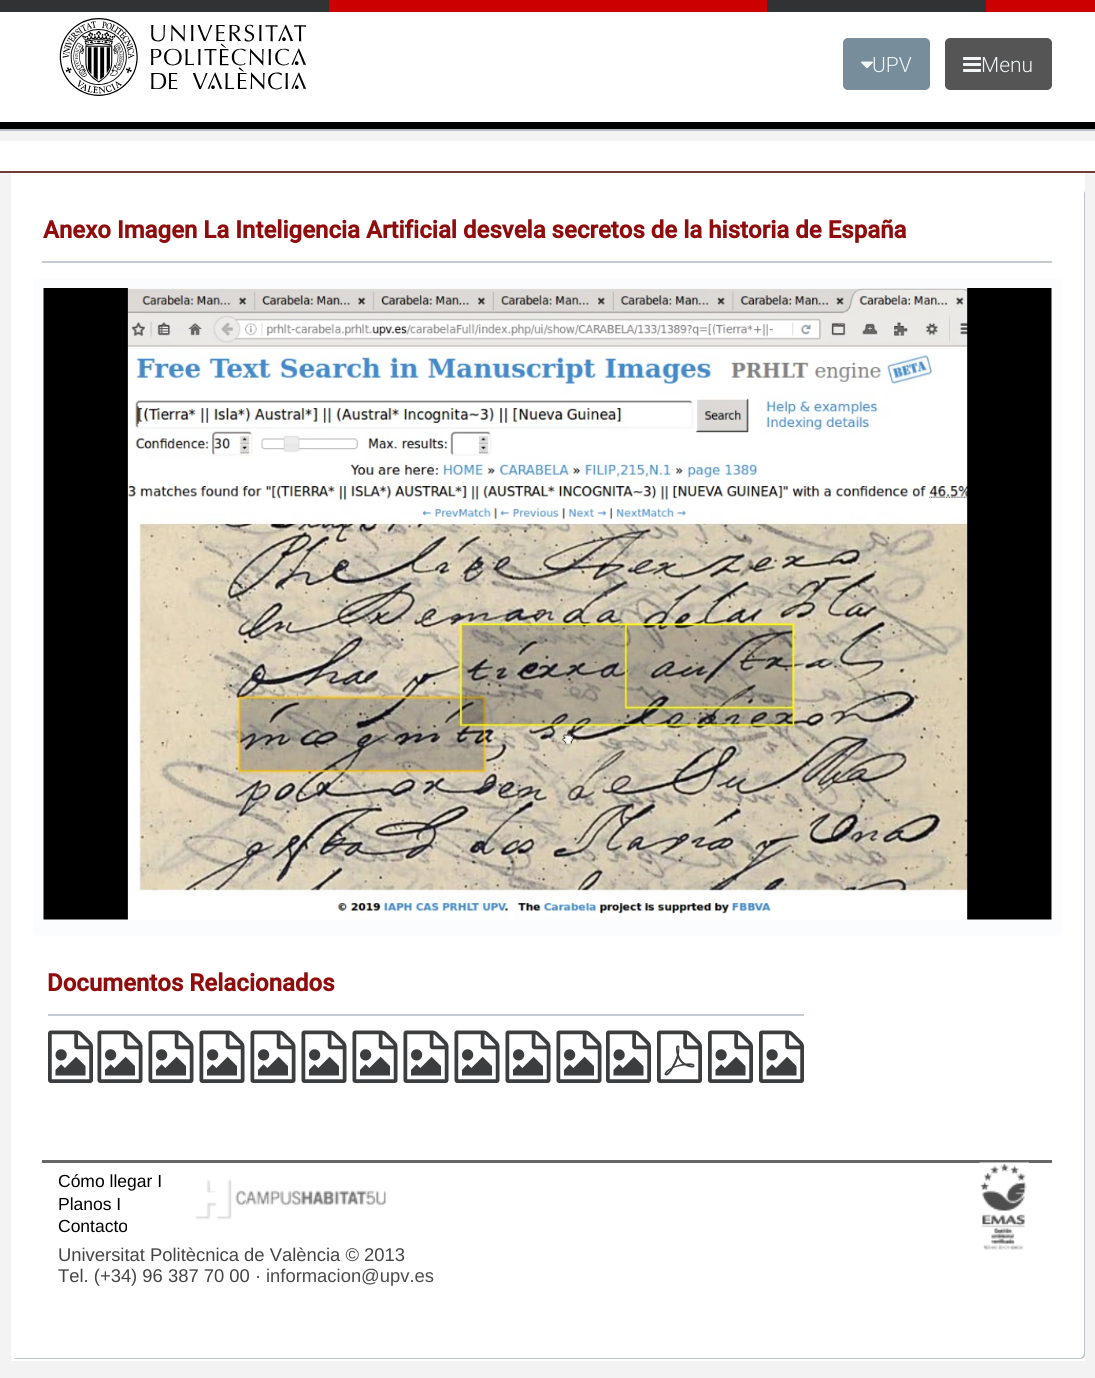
import math
import cairo

surface = cairo.ImageSurface(cairo.FORMAT_RGB24, 1095, 1378)
ctx = cairo.Context(surface)
options = cairo.FontOptions()
options.set_hint_metrics(cairo.HINT_METRICS_OFF)
options.set_hint_style(cairo.HINT_STYLE_NONE)
ctx.set_font_options(options)
ctx.set_miter_limit(4)


def round_rect(x, y, w, h, r):
    ctx.new_sub_path()
    for i, (u, v) in enumerate([(x + w - r, y + h - r), (x + r, y + h - r), (x + r, y + r), (x + w - r, y + r)]):
        ctx.arc(u, v, r, i * math.pi / 2, (i + 1) * math.pi / 2)
    ctx.close_path()


def picture(path, x, y, w, h):
    ctx.save()
    ctx.set_source_surface(cairo.ImageSurface.create_from_png(path), x, y)
    ctx.rectangle(x, y, w, h)
    ctx.fill()
    ctx.restore()


ctx.set_source_rgb(0.953, 0.953, 0.953)
ctx.paint()
ctx.set_source_rgb(0.443, 0.231, 0.231)
ctx.rectangle(0, 171, 1095, 2)
ctx.fill()
ctx.set_source_rgb(0.722, 0.757, 0.788)
ctx.rectangle(0, 129, 1095, 2)
ctx.fill()
ctx.set_source_rgb(1, 1, 1)
ctx.rectangle(0, 12, 1095, 110)
ctx.fill()
ctx.set_source_rgb(0, 0, 0)
ctx.rectangle(0, 122, 1095, 7)
ctx.fill()
ctx.set_source_rgb(0.8, 0, 0)
ctx.rectangle(329, 0, 766, 12)
ctx.fill()
ctx.set_source_rgb(0.192, 0.196, 0.2)
ctx.rectangle(0, 0, 329, 12)
ctx.fill()
ctx.rectangle(767, 0, 219, 12)
ctx.fill()
picture("img1.png", 59, 18, 248, 78)
ctx.set_source_rgb(0.467, 0.553, 0.608)
round_rect(843, 38, 87, 52, 5)
ctx.fill()
picture("img2.png", 861, 61, 12, 8)
ctx.select_font_face("Roboto Light")
ctx.set_font_size(21)
ctx.set_source_rgb(0.945, 0.965, 0.976)
ctx.move_to(872, 72)
ctx.show_text("UPV")
ctx.set_source_rgb(0.333, 0.333, 0.333)
round_rect(945, 38, 107, 52, 5)
ctx.fill()
picture("img3.png", 963, 57, 18, 15)
ctx.set_source_rgb(0.945, 0.965, 0.976)
ctx.move_to(981, 72)
ctx.show_text("Menu")
ctx.set_source_rgb(1, 1, 1)
ctx.rectangle(0, 141, 1095, 30)
ctx.fill()
ctx.rectangle(11, 173, 1074, 1188)
ctx.fill()
ctx.set_source_rgb(0.737, 0.773, 0.804)
ctx.new_path()
ctx.move_to(11, 1355)
ctx.curve_to(12, 1357, 14, 1359, 16, 1359)
ctx.line_to(1080, 1359)
ctx.curve_to(1083, 1359, 1085, 1357, 1085, 1354)
ctx.line_to(1085, 193)
ctx.line_to(1084, 191)
ctx.line_to(1084, 1353)
ctx.curve_to(1084, 1355, 1082, 1358, 1080, 1358)
ctx.line_to(15, 1358)
ctx.curve_to(13, 1358, 12, 1357, 11, 1355)
ctx.close_path()
ctx.fill()
ctx.set_source_rgb(0.765, 0.8, 0.835)
ctx.rectangle(42, 261, 1010, 2)
ctx.fill()
ctx.select_font_face("Roboto", cairo.FONT_SLANT_NORMAL, cairo.FONT_WEIGHT_BOLD)
ctx.set_font_size(24)
ctx.set_source_rgb(0.565, 0.051, 0.051)
ctx.move_to(43, 238)
ctx.show_text("Anexo Imagen La Inteligencia Artificial desvela secretos de la historia de España")
ctx.set_source_rgb(0.984, 0.988, 0.992)
round_rect(33, 278, 1029, 658, 5)
ctx.fill()
picture("img4.png", 43, 288, 1009, 632)
ctx.set_source_rgb(0.765, 0.8, 0.835)
ctx.rectangle(48, 1014, 756, 2)
ctx.fill()
ctx.set_source_rgb(0.565, 0.051, 0.051)
ctx.move_to(47, 991)
ctx.show_text("Documentos Relacionados")
picture("img5.png", 48, 1030, 45, 53)
picture("img6.png", 97, 1030, 46, 53)
picture("img6.png", 148, 1030, 46, 53)
picture("img6.png", 199, 1030, 46, 53)
picture("img6.png", 250, 1030, 46, 53)
picture("img6.png", 301, 1030, 46, 53)
picture("img6.png", 352, 1030, 46, 53)
picture("img6.png", 403, 1030, 46, 53)
picture("img6.png", 454, 1030, 46, 53)
picture("img6.png", 505, 1030, 46, 53)
picture("img6.png", 556, 1030, 46, 53)
picture("img5.png", 606, 1030, 45, 53)
picture("img7.png", 657, 1030, 45, 53)
picture("img5.png", 708, 1030, 45, 53)
picture("img5.png", 759, 1030, 45, 53)
ctx.set_source_rgb(0.4, 0.4, 0.4)
ctx.rectangle(42, 1160, 1010, 3)
ctx.fill()
ctx.select_font_face("Liberation Sans")
ctx.set_font_size(17.5)
ctx.set_source_rgb(0, 0, 0)
ctx.move_to(58, 1187)
ctx.show_text("Cómo llegar I")
ctx.move_to(58, 1210)
ctx.show_text("Planos I")
ctx.move_to(58, 1232)
ctx.show_text("Contacto")
ctx.set_font_size(18.4)
ctx.set_source_rgb(0.267, 0.267, 0.267)
ctx.move_to(58, 1261)
ctx.show_text("Universitat Politècnica de València © 2013")
ctx.move_to(58, 1282)
ctx.show_text("Tel. (+34) 96 387 70 00 ·")
ctx.set_source_rgb(0.294, 0.294, 0.294)
ctx.move_to(266, 1282)
ctx.show_text("informacion@upv.es")
picture("img8.png", 195, 1179, 191, 41)
picture("img9.png", 979, 1162, 50, 88)
surface.write_to_png("page.png")
